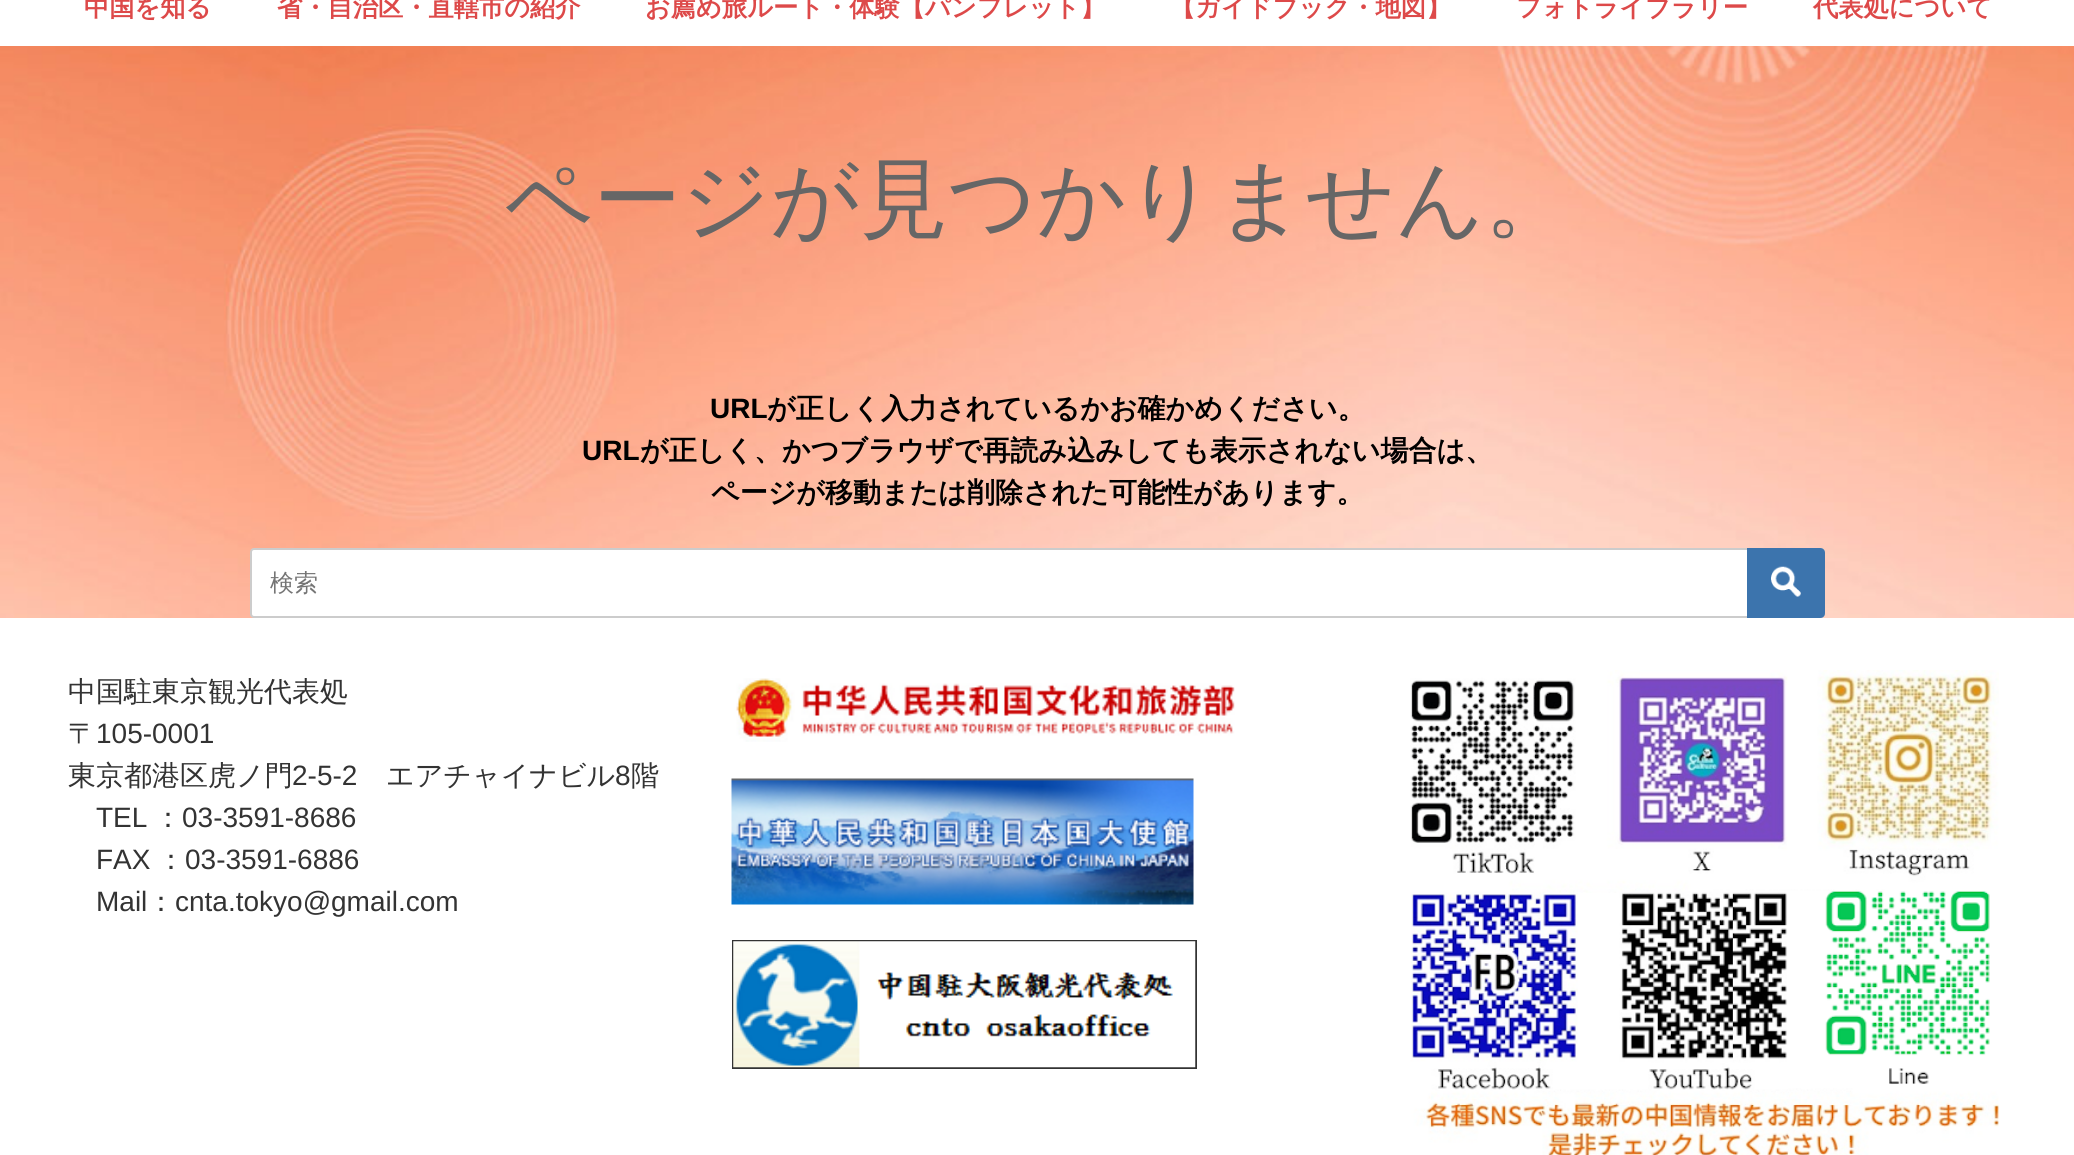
import math
import cairo

surface = cairo.ImageSurface(cairo.FORMAT_RGB24, 2074, 1155)
ctx = cairo.Context(surface)
options = cairo.FontOptions()
options.set_hint_metrics(cairo.HINT_METRICS_OFF)
options.set_hint_style(cairo.HINT_STYLE_NONE)
ctx.set_font_options(options)
ctx.set_miter_limit(4)


def round_rect(x, y, w, h, r):
    ctx.new_sub_path()
    for i, (u, v) in enumerate([(x + w - r, y + h - r), (x + r, y + h - r), (x + r, y + r), (x + w - r, y + r)]):
        ctx.arc(u, v, r, i * math.pi / 2, (i + 1) * math.pi / 2)
    ctx.close_path()


def picture(path, x, y, w, h):
    ctx.save()
    ctx.set_source_surface(cairo.ImageSurface.create_from_png(path), x, y)
    ctx.rectangle(x, y, w, h)
    ctx.fill()
    ctx.restore()


ctx.set_source_rgb(1, 1, 1)
ctx.paint()
picture("img1.png", 0, 46, 2074, 572)
ctx.select_font_face("WenQuanYi Zen Hei", cairo.FONT_SLANT_NORMAL, cairo.FONT_WEIGHT_BOLD)
ctx.set_font_size(25.25)
ctx.set_source_rgb(0.867, 0.286, 0.286)
ctx.move_to(84, 16)
ctx.show_text("中国を知る")
ctx.move_to(277, 16)
ctx.show_text("省・自治区・直轄市の紹介")
ctx.move_to(645, 16)
ctx.show_text("お薦め旅ルート・体験【パンフレット】")
ctx.move_to(1170, 16)
ctx.show_text("【ガイドブック・地図】")
ctx.move_to(1516, 16)
ctx.show_text("フォトライブラリー")
ctx.move_to(1813, 16)
ctx.show_text("代表処について")
ctx.select_font_face("WenQuanYi Zen Hei Medium")
ctx.set_font_size(87.5)
ctx.set_source_rgb(0.4, 0.4, 0.4)
ctx.move_to(504, 229)
ctx.show_text("ページが見つかりません。")
ctx.select_font_face("Liberation Sans", cairo.FONT_SLANT_NORMAL, cairo.FONT_WEIGHT_BOLD)
ctx.set_font_size(28)
ctx.set_source_rgb(0, 0, 0)
ctx.move_to(710, 418)
ctx.show_text("URL")
ctx.select_font_face("WenQuanYi Zen Hei", cairo.FONT_SLANT_NORMAL, cairo.FONT_WEIGHT_BOLD)
ctx.move_to(767, 418)
ctx.show_text("が正しく入力されているかお確かめください。")
ctx.select_font_face("Liberation Sans", cairo.FONT_SLANT_NORMAL, cairo.FONT_WEIGHT_BOLD)
ctx.move_to(582, 460)
ctx.show_text("URL")
ctx.select_font_face("WenQuanYi Zen Hei", cairo.FONT_SLANT_NORMAL, cairo.FONT_WEIGHT_BOLD)
ctx.move_to(640, 460)
ctx.show_text("が正しく、かつブラウザで再読み込みしても表示されない場合は、")
ctx.move_to(711, 502)
ctx.show_text("ページが移動または削除された可能性があります。")
ctx.set_source_rgb(1, 1, 1)
round_rect(251, 549, 1573, 68, 3)
ctx.fill_preserve()
ctx.set_source_rgb(0.8, 0.8, 0.8)
ctx.stroke()
ctx.select_font_face("WenQuanYi Zen Hei Medium")
ctx.set_font_size(24)
ctx.set_source_rgb(0.459, 0.459, 0.459)
ctx.move_to(270, 591)
ctx.show_text("検索")
ctx.set_source_rgb(0.235, 0.455, 0.678)
ctx.new_path()
ctx.move_to(1747, 548)
ctx.line_to(1820, 548)
ctx.curve_to(1823, 548, 1825, 550, 1825, 553)
ctx.line_to(1825, 613)
ctx.curve_to(1825, 616, 1823, 618, 1820, 618)
ctx.line_to(1747, 618)
ctx.close_path()
ctx.fill()
picture("img2.png", 1771, 566, 30, 31)
ctx.set_font_size(28)
ctx.set_source_rgb(0.2, 0.2, 0.2)
ctx.move_to(68, 701)
ctx.show_text("中国駐東京観光代表処")
ctx.move_to(68, 743)
ctx.show_text("〒")
ctx.select_font_face("Liberation Sans")
ctx.move_to(96, 743)
ctx.show_text("105-0001")
ctx.select_font_face("WenQuanYi Zen Hei Medium")
ctx.move_to(68, 785)
ctx.show_text("東京都港区虎ノ門")
ctx.select_font_face("Liberation Sans")
ctx.move_to(292, 785)
ctx.show_text("2-5-2")
ctx.select_font_face("WenQuanYi Zen Hei Medium")
ctx.move_to(386, 785)
ctx.show_text("エアチャイナビル")
ctx.select_font_face("Liberation Sans")
ctx.move_to(615, 785)
ctx.show_text("8")
ctx.select_font_face("WenQuanYi Zen Hei Medium")
ctx.move_to(631, 785)
ctx.show_text("階")
ctx.select_font_face("Liberation Sans")
ctx.move_to(96, 827)
ctx.show_text("TEL")
ctx.select_font_face("WenQuanYi Zen Hei Medium")
ctx.move_to(154, 827)
ctx.show_text("：")
ctx.select_font_face("Liberation Sans")
ctx.move_to(182, 827)
ctx.show_text("03-3591-8686")
ctx.move_to(96, 869)
ctx.show_text("FAX")
ctx.select_font_face("WenQuanYi Zen Hei Medium")
ctx.move_to(157, 869)
ctx.show_text("：")
ctx.select_font_face("Liberation Sans")
ctx.move_to(185, 869)
ctx.show_text("03-3591-6886")
ctx.move_to(96, 911)
ctx.show_text("Mail")
ctx.select_font_face("WenQuanYi Zen Hei Medium")
ctx.move_to(147, 911)
ctx.show_text("：")
ctx.select_font_face("Liberation Sans")
ctx.move_to(175, 911)
ctx.show_text("cnta.tokyo@gmail.com")
picture("img3.png", 736, 678, 499, 64)
picture("img4.png", 731, 778, 463, 127)
ctx.rectangle(733, 941, 463, 127)
ctx.stroke()
picture("img5.png", 733, 941, 463, 127)
picture("img6.png", 1410, 670, 589, 485)
surface.write_to_png("page.png")
